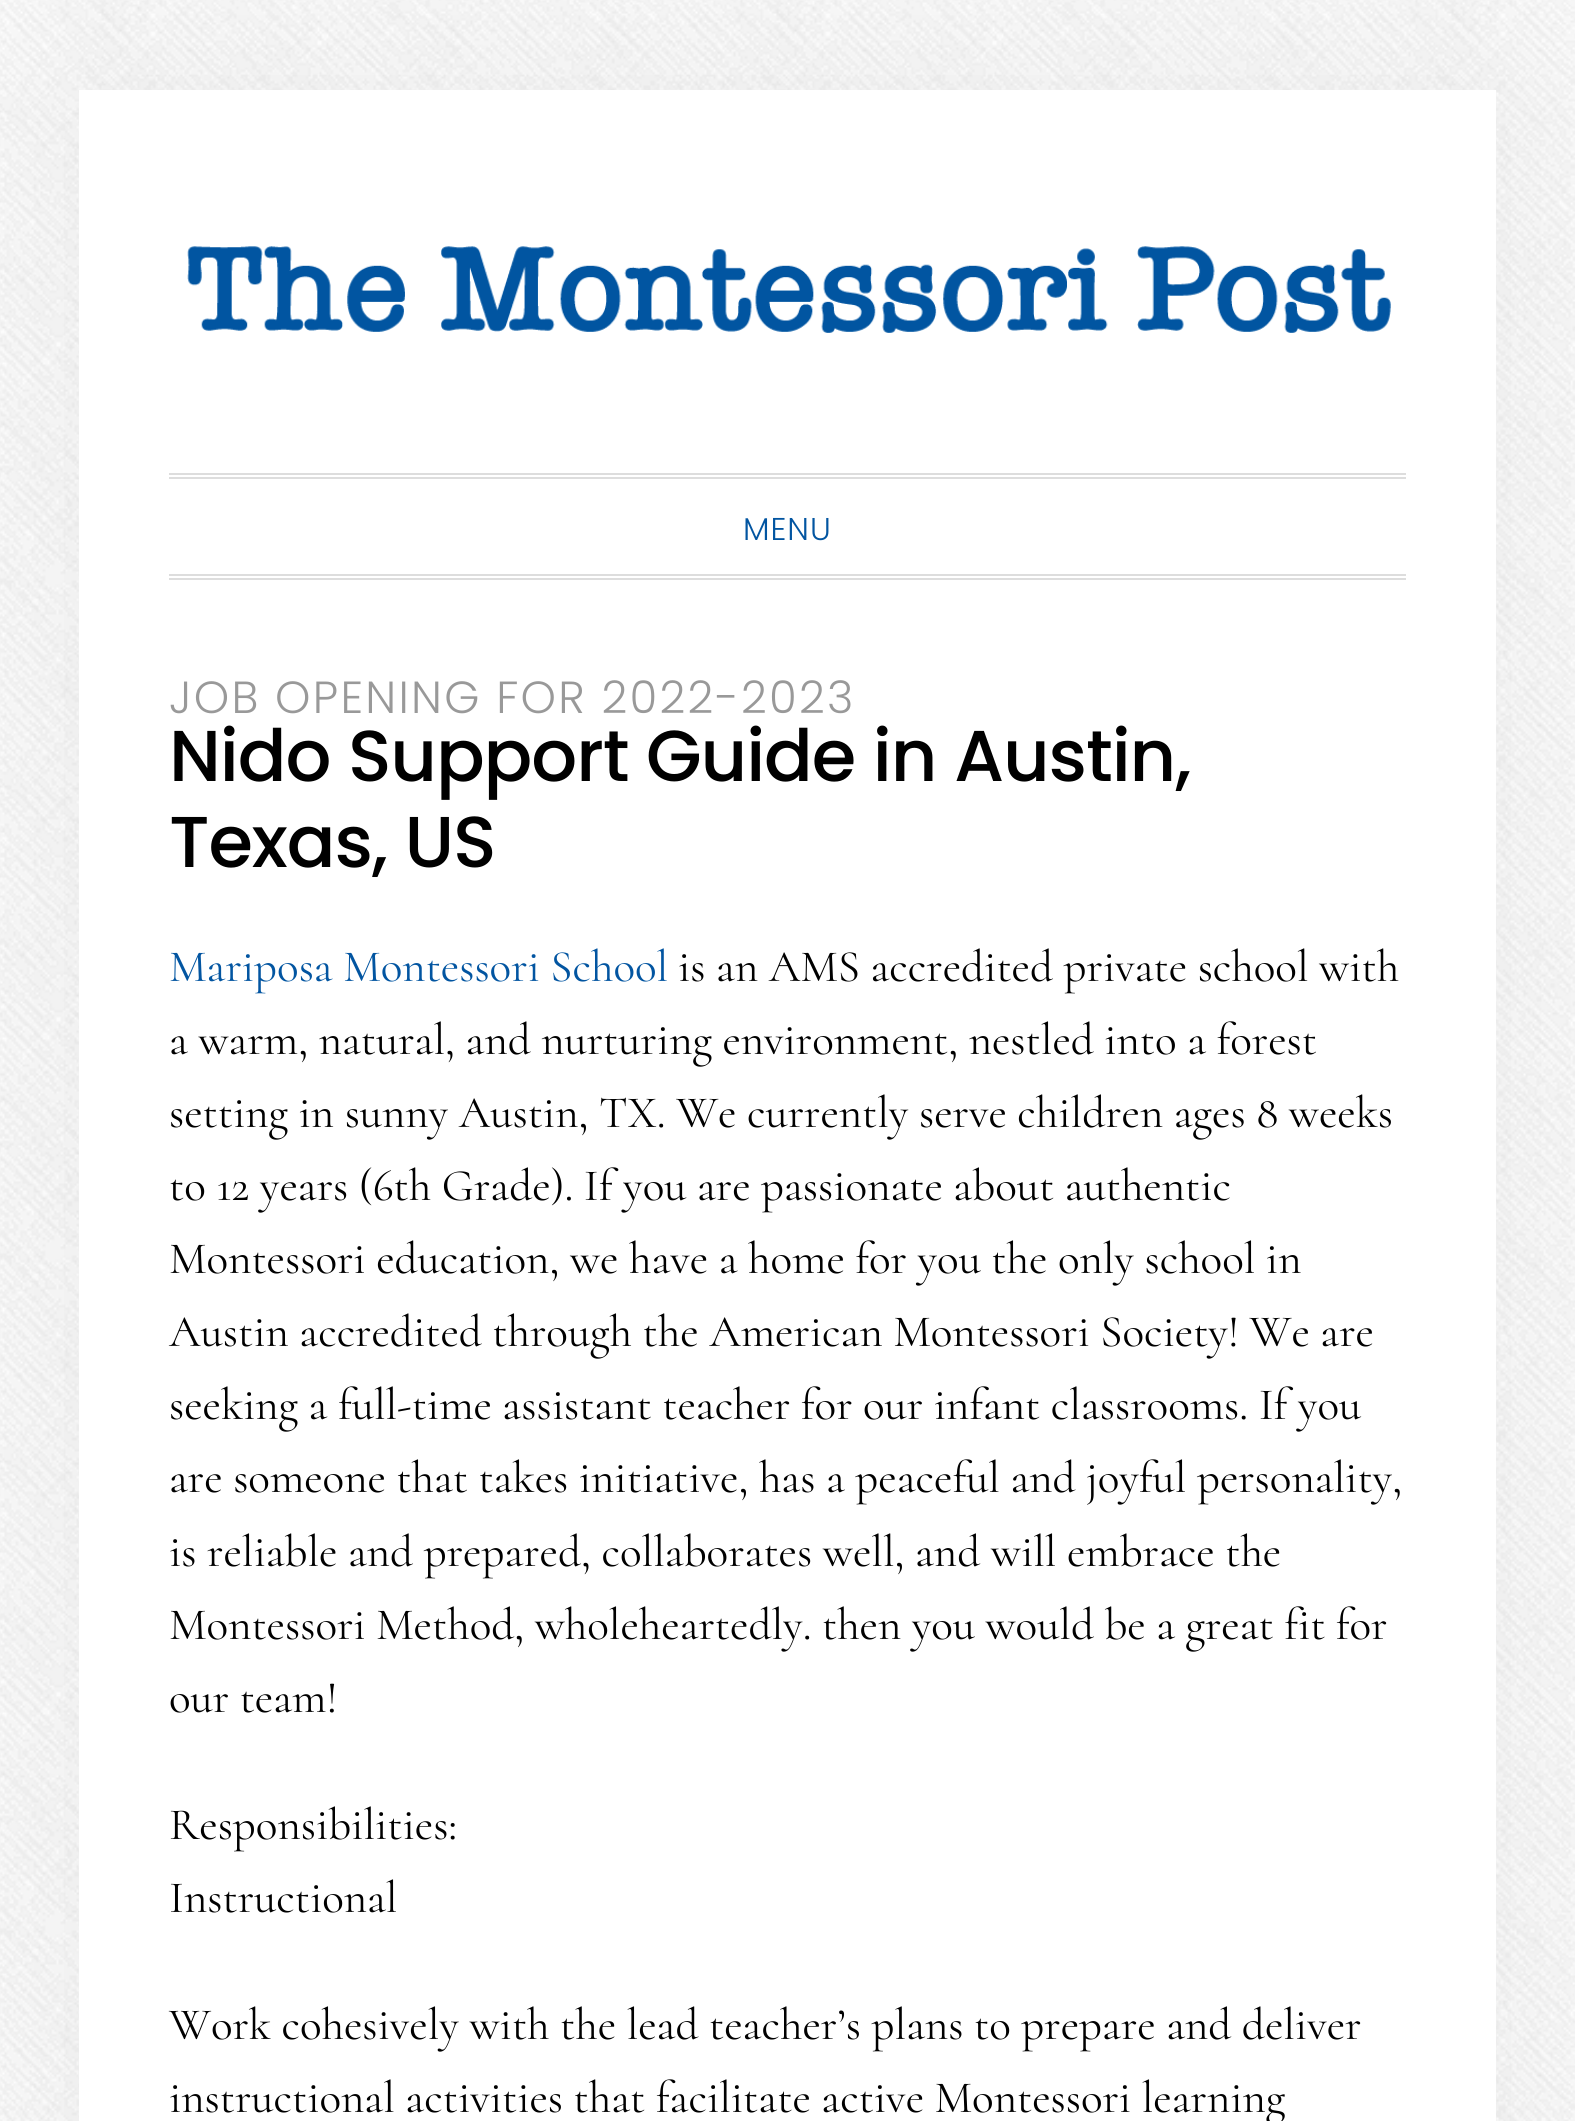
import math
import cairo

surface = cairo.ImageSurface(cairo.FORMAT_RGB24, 1575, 2121)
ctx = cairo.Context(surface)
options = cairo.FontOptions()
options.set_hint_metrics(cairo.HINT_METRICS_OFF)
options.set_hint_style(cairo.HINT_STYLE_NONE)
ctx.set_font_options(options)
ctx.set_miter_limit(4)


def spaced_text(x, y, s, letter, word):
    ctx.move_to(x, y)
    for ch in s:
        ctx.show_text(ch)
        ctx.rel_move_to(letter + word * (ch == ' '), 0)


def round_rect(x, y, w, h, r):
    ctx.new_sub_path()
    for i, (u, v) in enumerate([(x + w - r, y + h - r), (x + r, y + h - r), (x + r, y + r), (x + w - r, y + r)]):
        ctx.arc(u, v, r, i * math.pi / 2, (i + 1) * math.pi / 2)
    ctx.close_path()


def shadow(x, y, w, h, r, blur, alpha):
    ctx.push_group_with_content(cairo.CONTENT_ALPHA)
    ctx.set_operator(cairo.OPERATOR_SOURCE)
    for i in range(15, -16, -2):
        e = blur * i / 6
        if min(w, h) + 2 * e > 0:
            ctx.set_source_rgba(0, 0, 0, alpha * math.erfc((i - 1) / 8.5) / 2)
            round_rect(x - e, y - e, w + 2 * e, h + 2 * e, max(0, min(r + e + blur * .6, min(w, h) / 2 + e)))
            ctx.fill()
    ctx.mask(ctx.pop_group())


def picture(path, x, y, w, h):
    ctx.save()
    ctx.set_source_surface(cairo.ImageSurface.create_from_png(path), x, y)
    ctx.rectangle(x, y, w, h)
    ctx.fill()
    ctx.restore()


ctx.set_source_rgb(1, 1, 1)
ctx.paint()
picture("img1.png", 0, 0, 1575, 2121)
ctx.set_source_rgb(0, 0, 0)
shadow(79, 90, 1417, 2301, 0, 90, 0.05)
ctx.set_source_rgb(1, 1, 1)
ctx.rectangle(79, 90, 1417, 2031)
ctx.fill()
picture("img2.png", 187, 246, 1204, 87)
ctx.set_source_rgb(0.867, 0.867, 0.867)
ctx.rectangle(169, 473, 1237, 2)
ctx.fill()
ctx.rectangle(169, 477, 1237, 2)
ctx.fill()
ctx.rectangle(169, 574, 1237, 2)
ctx.fill()
ctx.rectangle(169, 578, 1237, 2)
ctx.fill()
ctx.select_font_face("Poppins Light")
ctx.set_font_size(31.5)
ctx.set_source_rgb(0.008, 0.333, 0.631)
spaced_text(743, 540, "MENU", 1, 0)
ctx.set_font_size(45)
ctx.set_source_rgb(0.6, 0.6, 0.6)
spaced_text(169, 713, "JOB OPENING FOR 2022-2023", 2.25, 0)
ctx.select_font_face("Poppins Medium")
ctx.set_font_size(72)
ctx.set_source_rgb(0, 0, 0)
spaced_text(169, 781, "Nido Support Guide in Austin,", -1.1, 0)
spaced_text(169, 867, "Texas, US", -1.1, 0)
ctx.select_font_face("Cormorant")
ctx.set_font_size(45)
ctx.set_source_rgb(0.008, 0.333, 0.631)
ctx.move_to(169, 981)
ctx.show_text("Mariposa Montessori School")
ctx.set_source_rgb(0, 0, 0)
ctx.move_to(678, 981)
ctx.show_text("is an AMS accredited private school with")
ctx.move_to(169, 1054)
ctx.show_text("a warm, natural, and nurturing environment, nestled into a forest")
ctx.move_to(169, 1127)
ctx.show_text("setting in sunny Austin, TX. We currently serve children ages 8 weeks")
ctx.move_to(169, 1200)
ctx.show_text("to 12 years (6th Grade). If you are passionate about authentic")
ctx.move_to(169, 1273)
ctx.show_text("Montessori education, we have a home for you the only school in")
ctx.move_to(169, 1346)
ctx.show_text("Austin accredited through the American Montessori Society! We are")
ctx.move_to(169, 1419)
ctx.show_text("seeking a full-time assistant teacher for our infant classrooms. If you")
ctx.move_to(169, 1492)
ctx.show_text("are someone that takes initiative, has a peaceful and joyful personality,")
ctx.move_to(169, 1566)
ctx.show_text("is reliable and prepared, collaborates well, and will embrace the")
spaced_text(169, 1639, "Montessori Method, wholeheartedly. then you would be a great fit for", 0, -0.1)
ctx.move_to(169, 1712)
ctx.show_text("our team!")
ctx.move_to(169, 1839)
ctx.show_text("Responsibilities:")
ctx.move_to(169, 1912)
ctx.show_text("Instructional")
ctx.move_to(169, 2039)
ctx.show_text("Work cohesively with the lead teacher’s plans to prepare and deliver")
ctx.move_to(169, 2112)
ctx.show_text("instructional activities that facilitate active Montessori learning")
surface.write_to_png("page.png")
